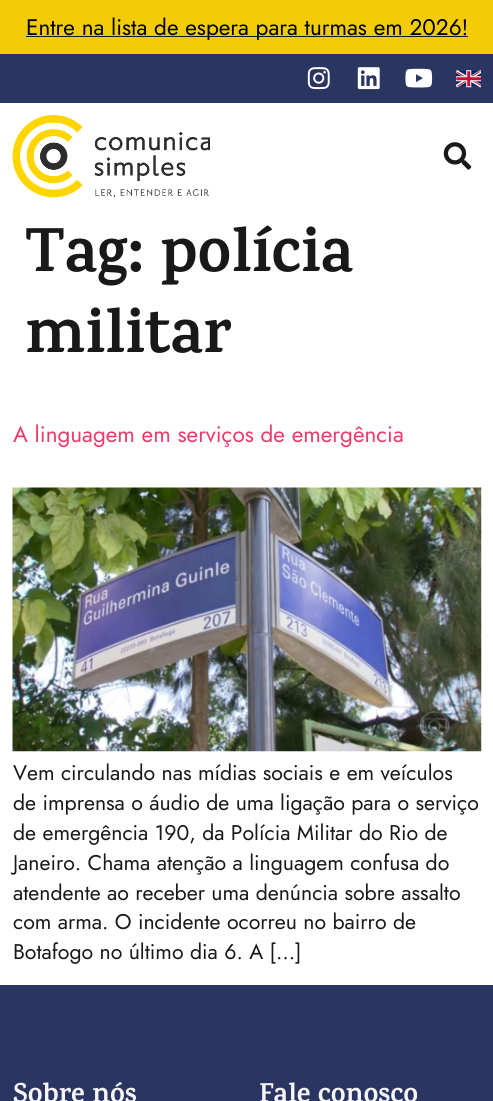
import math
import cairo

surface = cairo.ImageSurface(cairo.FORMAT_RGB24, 493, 1101)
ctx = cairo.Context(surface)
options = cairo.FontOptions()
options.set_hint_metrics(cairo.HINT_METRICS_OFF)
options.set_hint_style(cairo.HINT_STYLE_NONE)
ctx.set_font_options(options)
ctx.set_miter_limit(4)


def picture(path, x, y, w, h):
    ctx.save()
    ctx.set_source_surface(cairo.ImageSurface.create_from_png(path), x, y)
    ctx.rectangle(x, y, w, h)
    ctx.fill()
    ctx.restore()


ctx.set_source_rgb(1, 1, 1)
ctx.paint()
ctx.set_source_rgb(0.953, 0.796, 0.024)
ctx.rectangle(0, 0, 493, 54)
ctx.fill()
ctx.set_source_rgb(0.098, 0.098, 0.098)
ctx.rectangle(26, 36, 442, 1)
ctx.fill()
ctx.select_font_face("Jost")
ctx.set_font_size(22.5)
ctx.set_source_rgb(0, 0, 0)
ctx.move_to(26, 35)
ctx.show_text("Entre na lista de espera para turmas em 2026!")
ctx.set_source_rgb(0.165, 0.208, 0.384)
ctx.rectangle(0, 54, 493, 49)
ctx.fill()
picture("img1.png", 307, 67, 23, 23)
picture("img2.png", 357, 67, 23, 23)
picture("img3.png", 405, 68, 28, 20)
picture("img4.png", 456, 70, 25, 18)
picture("img5.png", 12, 115, 198, 83)
picture("img6.png", 443, 142, 29, 28)
ctx.select_font_face("Karma", cairo.FONT_SLANT_NORMAL, cairo.FONT_WEIGHT_BOLD)
ctx.set_font_size(62.5)
ctx.set_source_rgb(0.098, 0.098, 0.098)
ctx.move_to(25, 271)
ctx.show_text("Tag: polícia")
ctx.move_to(25, 352)
ctx.show_text("militar")
ctx.select_font_face("Jost")
ctx.set_font_size(22.5)
ctx.set_source_rgb(0.918, 0.231, 0.412)
ctx.move_to(13, 442)
ctx.show_text("A linguagem em serviços de emergência")
picture("img7.png", 12, 487, 470, 265)
ctx.set_font_size(21.25)
ctx.set_source_rgb(0.098, 0.098, 0.098)
ctx.move_to(13, 780)
ctx.show_text("Vem circulando nas mídias sociais e em veículos")
ctx.move_to(13, 810)
ctx.show_text("de imprensa o áudio de uma ligação para o serviço")
ctx.move_to(13, 840)
ctx.show_text("de emergência 190, da Polícia Militar do Rio de")
ctx.move_to(13, 870)
ctx.show_text("Janeiro. Chama atenção a linguagem confusa do")
ctx.move_to(13, 900)
ctx.show_text("atendente ao receber uma denúncia sobre assalto")
ctx.move_to(13, 929)
ctx.show_text("com arma. O incidente ocorreu no bairro de")
ctx.move_to(13, 959)
ctx.show_text("Botafogo no último dia 6. A […]")
ctx.set_source_rgb(0.165, 0.208, 0.384)
ctx.rectangle(0, 985, 493, 116)
ctx.fill()
ctx.select_font_face("Karma", cairo.FONT_SLANT_NORMAL, cairo.FONT_WEIGHT_BOLD)
ctx.set_font_size(27.5)
ctx.set_source_rgb(0.961, 0.961, 0.961)
ctx.move_to(13, 1102)
ctx.show_text("Sobre nós")
ctx.move_to(259, 1102)
ctx.show_text("Fale conosco")
surface.write_to_png("page.png")
